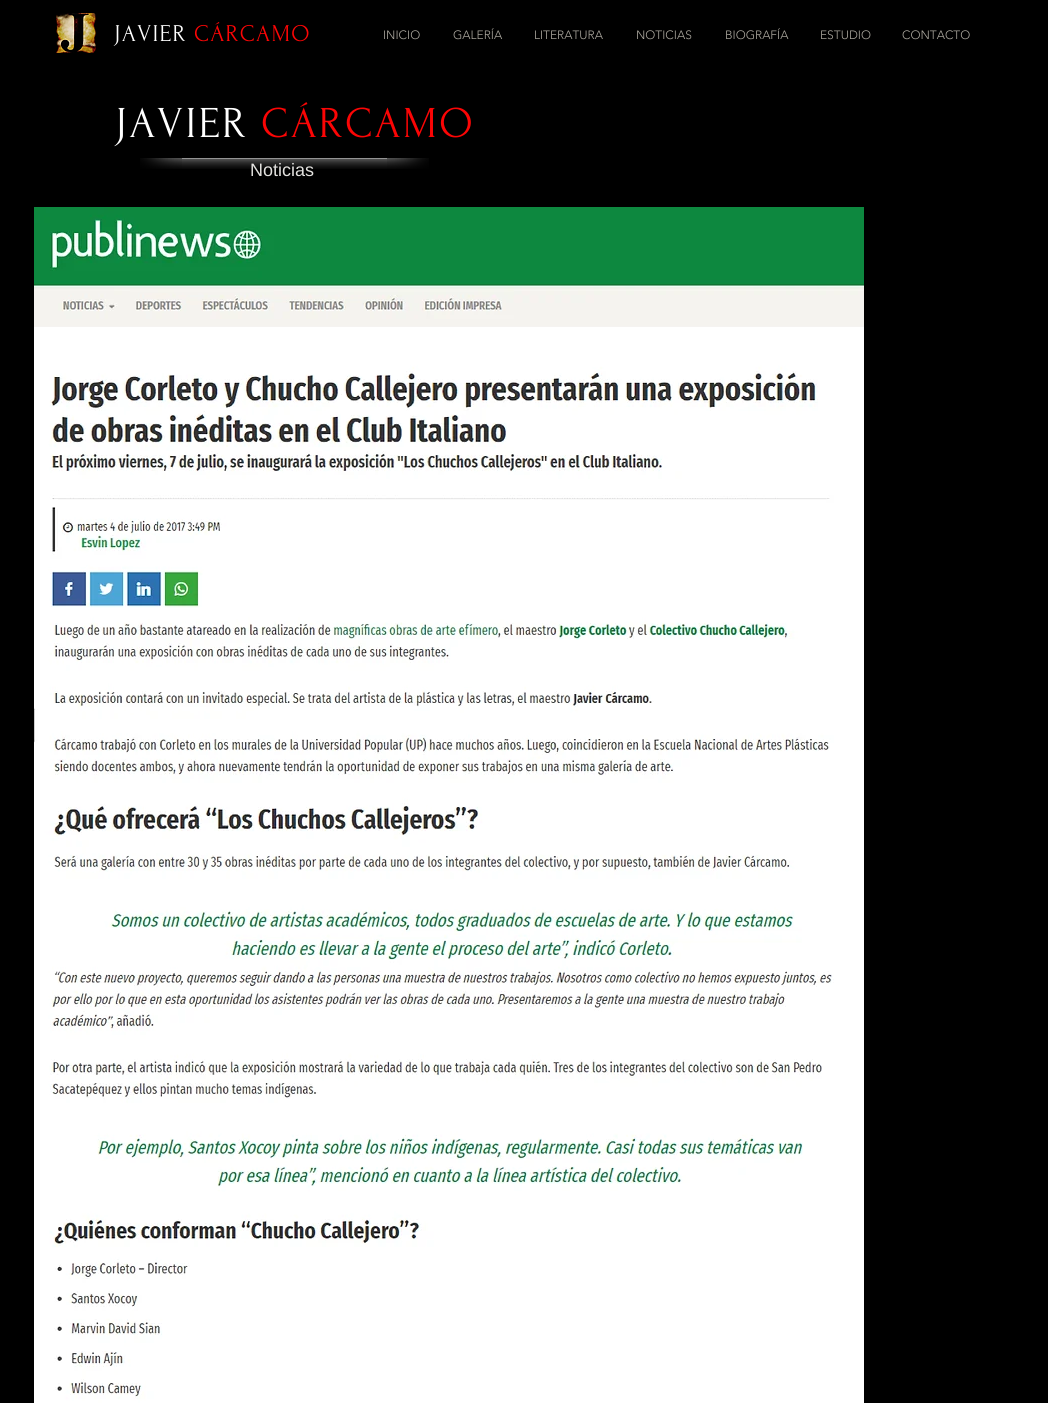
import math
import cairo

surface = cairo.ImageSurface(cairo.FORMAT_RGB24, 1048, 1403)
ctx = cairo.Context(surface)
options = cairo.FontOptions()
options.set_hint_metrics(cairo.HINT_METRICS_OFF)
options.set_hint_style(cairo.HINT_STYLE_NONE)
ctx.set_font_options(options)
ctx.set_miter_limit(4)


def spaced_text(x, y, s, letter, word):
    ctx.move_to(x, y)
    for ch in s:
        ctx.show_text(ch)
        ctx.rel_move_to(letter + word * (ch == ' '), 0)


def picture(path, x, y, w, h):
    ctx.save()
    ctx.set_source_surface(cairo.ImageSurface.create_from_png(path), x, y)
    ctx.rectangle(x, y, w, h)
    ctx.fill()
    ctx.restore()


ctx.set_source_rgb(0, 0, 0)
ctx.paint()
picture("img1.png", 56, 13, 40, 40)
ctx.select_font_face("Forum")
ctx.set_font_size(24)
ctx.set_source_rgb(1, 1, 1)
spaced_text(114, 41, "JAVIER", 1.25, 0)
ctx.set_source_rgb(0.988, 0.02, 0.02)
spaced_text(194, 41, "CÁRCAMO", 1.25, 0)
ctx.select_font_face("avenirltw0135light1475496 Light")
ctx.set_font_size(12)
ctx.set_source_rgb(0.678, 0.663, 0.627)
ctx.move_to(383, 39)
ctx.show_text("INICIO")
ctx.move_to(453, 39)
ctx.show_text("GALERÍA")
ctx.move_to(534, 39)
ctx.show_text("LITERATURA")
ctx.move_to(636, 39)
ctx.show_text("NOTICIAS")
ctx.move_to(725, 39)
ctx.show_text("BIOGRAFÍA")
ctx.move_to(820, 39)
ctx.show_text("ESTUDIO")
ctx.move_to(902, 39)
ctx.show_text("CONTACTO")
ctx.select_font_face("Forum")
ctx.set_font_size(44)
ctx.set_source_rgb(1, 1, 1)
spaced_text(115, 137, "JAVIER", 2.25, 0)
ctx.set_source_rgb(0.988, 0.02, 0.02)
spaced_text(261, 137, "CÁRCAMO", 2.25, 0)
ctx.select_font_face("Liberation Sans")
ctx.set_font_size(18)
ctx.set_source_rgb(0.886, 0.882, 0.871)
ctx.move_to(250, 176)
ctx.show_text("Noticias")
picture("img2.png", 182, 158, 205, 11)
picture("img3.png", 140, 158, 42, 11)
picture("img4.png", 387, 158, 42, 11)
picture("img5.png", 34, 207, 830, 1196)
surface.write_to_png("page.png")
